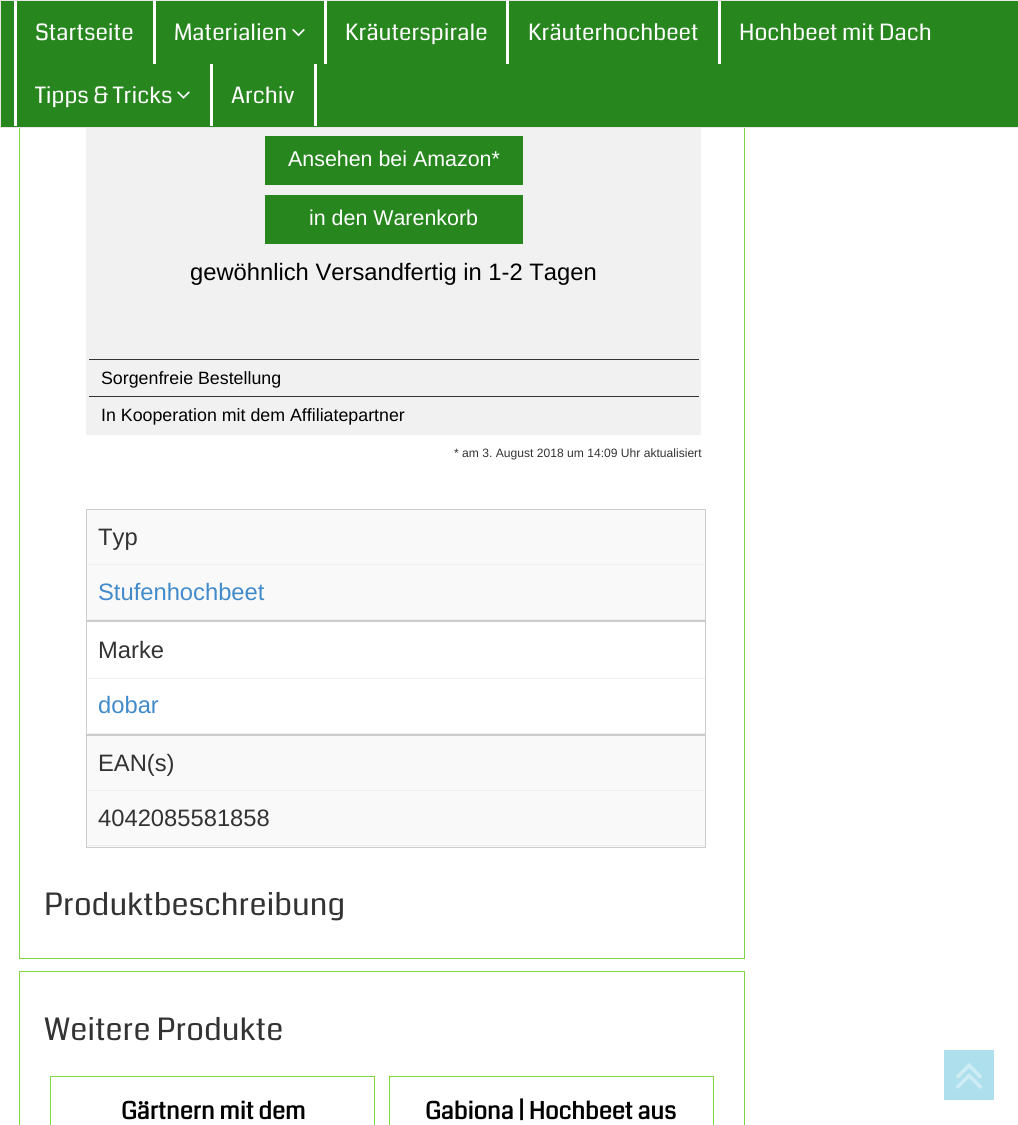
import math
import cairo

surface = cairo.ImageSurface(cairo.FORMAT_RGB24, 1018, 1125)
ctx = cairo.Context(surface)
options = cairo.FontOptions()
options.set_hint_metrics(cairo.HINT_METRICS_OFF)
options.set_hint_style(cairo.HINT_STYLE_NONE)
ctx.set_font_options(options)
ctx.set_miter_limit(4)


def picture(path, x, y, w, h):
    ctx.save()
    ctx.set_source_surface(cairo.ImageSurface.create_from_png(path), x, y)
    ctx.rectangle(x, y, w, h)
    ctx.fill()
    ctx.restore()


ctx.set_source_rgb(1, 1, 1)
ctx.paint()
ctx.rectangle(19.5, -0.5, 725, 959)
ctx.set_source_rgb(0.506, 0.843, 0.259)
ctx.set_line_width(1)
ctx.stroke()
ctx.set_source_rgb(0.153, 0.525, 0.118)
ctx.rectangle(0.5, 0.5, 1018, 127)
ctx.fill_preserve()
ctx.set_source_rgb(0.906, 0.906, 0.906)
ctx.stroke()
ctx.set_source_rgb(1, 1, 1)
ctx.rectangle(14, 1, 3, 125)
ctx.fill()
ctx.select_font_face("Coda")
ctx.set_font_size(22.5)
ctx.move_to(35, 40)
ctx.show_text("Startseite")
ctx.rectangle(153, 1, 3, 63)
ctx.fill()
ctx.move_to(174, 40)
ctx.show_text("Materialien")
picture("img1.png", 292, 29, 13, 8)
ctx.rectangle(324, 1, 3, 63)
ctx.fill()
ctx.move_to(345, 40)
ctx.show_text("Kräuterspirale")
ctx.rectangle(506, 1, 3, 63)
ctx.fill()
ctx.move_to(528, 40)
ctx.show_text("Kräuterhochbeet")
ctx.rectangle(718, 1, 3, 63)
ctx.fill()
ctx.move_to(739, 40)
ctx.show_text("Hochbeet mit Dach")
ctx.move_to(35, 103)
ctx.show_text("Tipps & Tricks")
picture("img2.png", 177, 91, 13, 8)
ctx.rectangle(314, 64, 3, 62)
ctx.fill()
ctx.rectangle(210, 64, 3, 62)
ctx.fill()
ctx.move_to(231, 103)
ctx.show_text("Archiv")
ctx.set_source_rgb(0.945, 0.945, 0.945)
ctx.rectangle(86, 128, 615, 307)
ctx.fill()
ctx.set_source_rgb(0.153, 0.525, 0.118)
ctx.rectangle(265, 136, 258, 49)
ctx.fill()
ctx.select_font_face("Liberation Sans")
ctx.set_font_size(21.4)
ctx.set_source_rgb(1, 1, 1)
ctx.move_to(288, 166)
ctx.show_text("Ansehen bei Amazon*")
ctx.set_source_rgb(0.153, 0.525, 0.118)
ctx.rectangle(265, 195, 258, 49)
ctx.fill()
ctx.set_source_rgb(1, 1, 1)
ctx.move_to(309, 225)
ctx.show_text("in den Warenkorb")
ctx.set_font_size(23.75)
ctx.set_source_rgb(0, 0, 0)
ctx.move_to(190, 280)
ctx.show_text("gewöhnlich Versandfertig in 1-2 Tagen")
ctx.set_source_rgb(0.2, 0.2, 0.2)
ctx.rectangle(89, 359, 610, 1)
ctx.fill()
ctx.set_font_size(17.8)
ctx.set_source_rgb(0, 0, 0)
ctx.move_to(101, 384)
ctx.show_text("Sorgenfreie Bestellung")
ctx.set_source_rgb(0.2, 0.2, 0.2)
ctx.rectangle(89, 396, 610, 1)
ctx.fill()
ctx.set_source_rgb(0, 0, 0)
ctx.move_to(101, 421)
ctx.show_text("In Kooperation mit dem Affiliatepartner")
ctx.set_font_size(12.1)
ctx.set_source_rgb(0.2, 0.2, 0.2)
ctx.move_to(454, 457)
ctx.show_text("* am 3. August 2018 um 14:09 Uhr aktualisiert")
ctx.set_source_rgb(0.976, 0.976, 0.976)
ctx.rectangle(86.5, 509.5, 619, 111)
ctx.fill_preserve()
ctx.set_source_rgb(0.8, 0.8, 0.8)
ctx.stroke()
ctx.set_source_rgb(0.933, 0.933, 0.933)
ctx.rectangle(88, 564, 617, 1)
ctx.fill()
ctx.set_font_size(23.75)
ctx.set_source_rgb(0.2, 0.2, 0.2)
ctx.move_to(98, 545)
ctx.show_text("Typ")
ctx.set_source_rgb(0.933, 0.933, 0.933)
ctx.rectangle(88, 619, 617, 1)
ctx.fill()
ctx.set_source_rgb(0.259, 0.545, 0.792)
ctx.move_to(98, 600)
ctx.show_text("Stufenhochbeet")
ctx.rectangle(86.5, 621.5, 619, 113)
ctx.set_source_rgb(0.8, 0.8, 0.8)
ctx.stroke()
ctx.set_source_rgb(0.933, 0.933, 0.933)
ctx.rectangle(88, 678, 617, 1)
ctx.fill()
ctx.set_source_rgb(0.2, 0.2, 0.2)
ctx.move_to(98, 658)
ctx.show_text("Marke")
ctx.set_source_rgb(0.933, 0.933, 0.933)
ctx.rectangle(88, 733, 617, 1)
ctx.fill()
ctx.set_source_rgb(0.259, 0.545, 0.792)
ctx.move_to(98, 713)
ctx.show_text("dobar")
ctx.set_source_rgb(0.976, 0.976, 0.976)
ctx.rectangle(86.5, 735.5, 619, 112)
ctx.fill_preserve()
ctx.set_source_rgb(0.8, 0.8, 0.8)
ctx.stroke()
ctx.set_source_rgb(0.933, 0.933, 0.933)
ctx.rectangle(88, 790, 617, 1)
ctx.fill()
ctx.set_source_rgb(0.2, 0.2, 0.2)
ctx.move_to(98, 771)
ctx.show_text("EAN(s)")
ctx.set_source_rgb(0.933, 0.933, 0.933)
ctx.rectangle(88, 845, 617, 1)
ctx.fill()
ctx.set_source_rgb(0.2, 0.2, 0.2)
ctx.move_to(98, 826)
ctx.show_text("4042085581858")
ctx.select_font_face("Coda")
ctx.set_font_size(30.9)
ctx.move_to(44, 915)
ctx.show_text("Produktbeschreibung")
ctx.rectangle(19.5, 971.5, 725, 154)
ctx.set_source_rgb(0.506, 0.843, 0.259)
ctx.stroke()
ctx.set_source_rgb(0.2, 0.2, 0.2)
ctx.move_to(44, 1040)
ctx.show_text("Weitere Produkte")
ctx.rectangle(50.5, 1076.5, 324, 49)
ctx.set_source_rgb(0.506, 0.843, 0.259)
ctx.stroke()
ctx.select_font_face("Coda", cairo.FONT_SLANT_NORMAL, cairo.FONT_WEIGHT_BOLD)
ctx.set_font_size(23.75)
ctx.set_source_rgb(0, 0, 0)
ctx.move_to(121, 1119)
ctx.show_text("Gärtnern mit dem")
ctx.rectangle(389.5, 1076.5, 324, 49)
ctx.set_source_rgb(0.506, 0.843, 0.259)
ctx.stroke()
ctx.set_source_rgb(0, 0, 0)
ctx.move_to(425, 1119)
ctx.show_text("Gabiona | Hochbeet aus")
ctx.set_source_rgb(0.678, 0.875, 0.925)
ctx.rectangle(944, 1050, 50, 50)
ctx.fill()
picture("img3.png", 956, 1063, 27, 26)
surface.write_to_png("page.png")
